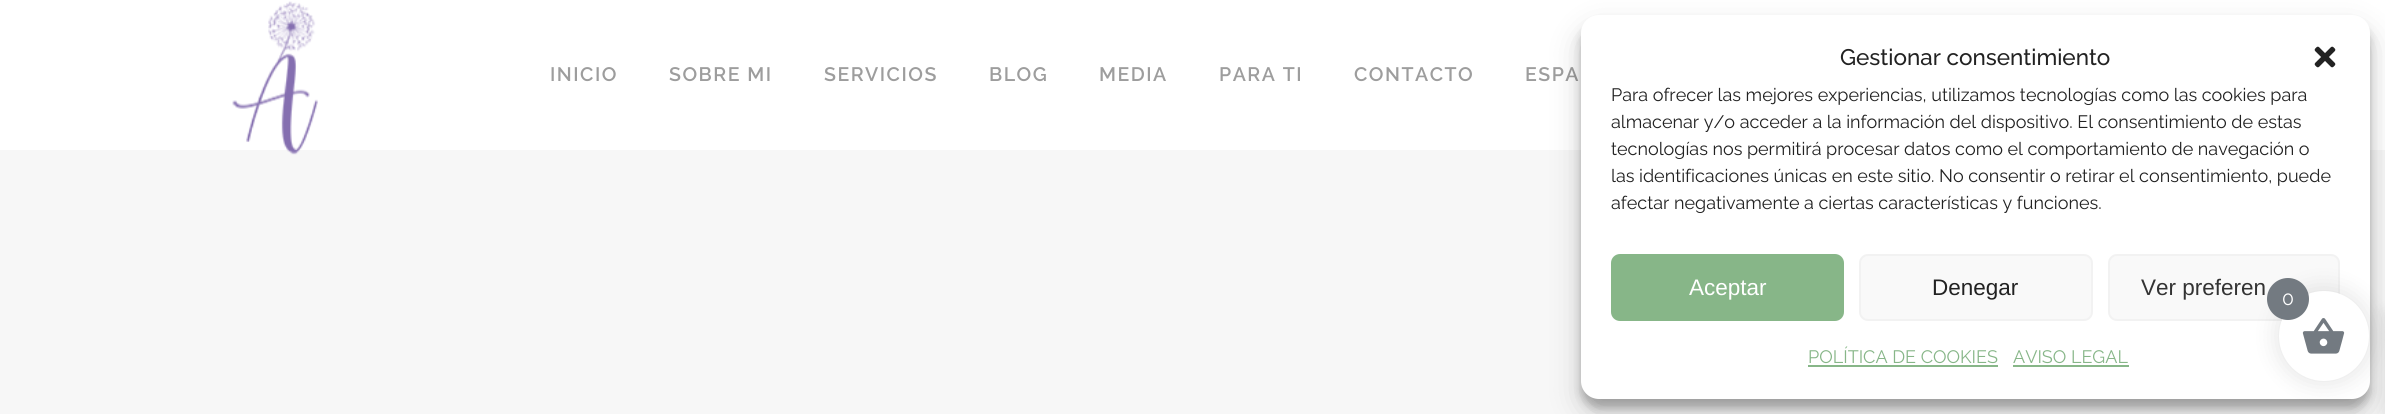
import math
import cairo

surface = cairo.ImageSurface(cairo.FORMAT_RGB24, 2385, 414)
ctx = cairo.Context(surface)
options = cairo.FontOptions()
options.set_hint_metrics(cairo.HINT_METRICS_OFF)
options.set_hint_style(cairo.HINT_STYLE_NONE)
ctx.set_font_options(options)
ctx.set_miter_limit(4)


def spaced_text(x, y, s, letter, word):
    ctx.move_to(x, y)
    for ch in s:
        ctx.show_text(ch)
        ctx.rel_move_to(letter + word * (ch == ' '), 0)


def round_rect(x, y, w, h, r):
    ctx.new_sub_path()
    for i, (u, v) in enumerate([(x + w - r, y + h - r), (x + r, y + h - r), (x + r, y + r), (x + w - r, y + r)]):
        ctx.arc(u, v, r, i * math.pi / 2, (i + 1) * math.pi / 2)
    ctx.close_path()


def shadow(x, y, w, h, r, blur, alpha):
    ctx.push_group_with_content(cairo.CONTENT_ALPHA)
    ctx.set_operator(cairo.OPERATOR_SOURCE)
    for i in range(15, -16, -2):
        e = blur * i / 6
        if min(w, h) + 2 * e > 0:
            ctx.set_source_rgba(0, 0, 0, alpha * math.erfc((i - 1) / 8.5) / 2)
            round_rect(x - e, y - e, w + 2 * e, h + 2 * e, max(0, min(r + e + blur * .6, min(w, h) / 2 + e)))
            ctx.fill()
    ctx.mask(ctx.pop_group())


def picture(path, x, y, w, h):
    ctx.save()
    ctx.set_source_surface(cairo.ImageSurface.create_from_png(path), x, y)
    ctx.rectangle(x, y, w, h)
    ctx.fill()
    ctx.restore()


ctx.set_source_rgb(0.965, 0.965, 0.965)
ctx.paint()
ctx.set_source_rgb(1, 1, 1)
ctx.rectangle(0, 0, 2385, 150)
ctx.fill()
picture("img1.png", 232, 1, 86, 154)
ctx.select_font_face("Raleway SemiBold")
ctx.set_font_size(19.5)
ctx.set_source_rgb(0.616, 0.616, 0.616)
spaced_text(550, 81, "INICIO", 1.5, 0)
spaced_text(669, 81, "SOBRE MI", 1.5, 0)
spaced_text(824, 81, "SERVICIOS", 1.5, 0)
spaced_text(989, 81, "BLOG", 1.5, 0)
spaced_text(1099, 81, "MEDIA", 1.5, 0)
spaced_text(1219, 81, "PARA TI", 1.5, 0)
spaced_text(1354, 81, "CONTACTO", 1.5, 0)
spaced_text(1525, 81, "ESPA", 1.5, 0)
ctx.set_source_rgb(0, 0, 0)
shadow(1581, 24, 789, 384, 18, 4.5, 0.23)
shadow(1581, 30, 789, 384, 18, 15, 0.19)
ctx.set_source_rgb(1, 1, 1)
round_rect(1581, 15, 789, 384, 18)
ctx.fill()
ctx.select_font_face("Raleway Medium")
ctx.set_font_size(22.5)
ctx.set_source_rgb(0.133, 0.133, 0.133)
ctx.move_to(1840, 65)
ctx.show_text("Gestionar consentimiento")
picture("img2.png", 2314, 46, 22, 22)
ctx.select_font_face("Raleway")
ctx.set_font_size(18)
ctx.move_to(1611, 101)
ctx.show_text("Para ofrecer las mejores experiencias, utilizamos tecnologías como las cookies para")
ctx.move_to(1611, 128)
ctx.show_text("almacenar y/o acceder a la información del dispositivo. El consentimiento de estas")
ctx.move_to(1611, 155)
ctx.show_text("tecnologías nos permitirá procesar datos como el comportamiento de navegación o")
ctx.move_to(1611, 182)
ctx.show_text("las identificaciones únicas en este sitio. No consentir o retirar el consentimiento, puede")
ctx.move_to(1611, 209)
ctx.show_text("afectar negativamente a ciertas características y funciones.")
ctx.set_source_rgb(0.529, 0.714, 0.533)
round_rect(1612, 255, 231, 65, 8)
ctx.fill_preserve()
ctx.stroke()
ctx.select_font_face("Liberation Sans")
ctx.set_font_size(22.5)
ctx.set_source_rgb(1, 1, 1)
ctx.move_to(1689, 295)
ctx.show_text("Aceptar")
ctx.set_source_rgb(0.976, 0.976, 0.976)
round_rect(1860, 255, 232, 65, 8)
ctx.fill_preserve()
ctx.set_source_rgb(0.949, 0.949, 0.949)
ctx.stroke()
ctx.set_source_rgb(0.133, 0.133, 0.133)
ctx.move_to(1932, 295)
ctx.show_text("Denegar")
ctx.set_source_rgb(0.976, 0.976, 0.976)
round_rect(2109, 255, 230, 65, 8)
ctx.fill_preserve()
ctx.set_source_rgb(0.949, 0.949, 0.949)
ctx.stroke()
ctx.set_source_rgb(0.2, 0.2, 0.2)
ctx.move_to(2141, 295)
ctx.show_text("Ver preferen")
ctx.select_font_face("Raleway")
ctx.set_font_size(18)
ctx.set_source_rgb(0.529, 0.714, 0.533)
ctx.move_to(1808, 363)
ctx.show_text("POLÍTICA DE COOKIES")
ctx.rectangle(1808, 365, 190, 2)
ctx.fill()
ctx.move_to(2013, 363)
ctx.show_text("AVISO LEGAL")
ctx.rectangle(2013, 365, 116, 2)
ctx.fill()
ctx.set_source_rgb(0, 0, 0)
shadow(2276, 288, 96, 96, 48, 11, 0.1)
shadow(2385, 314, 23, 99, 0, 7.5, 0.1)
ctx.set_source_rgb(1, 1, 1)
ctx.arc(2324, 336, 45, 0, 2 * math.pi)
ctx.fill()
picture("img3.png", 2302, 318, 43, 36)
ctx.set_source_rgb(0.451, 0.478, 0.506)
ctx.arc(2288, 299, 21, 0, 2 * math.pi)
ctx.fill()
ctx.set_font_size(19.5)
ctx.set_source_rgb(1, 1, 1)
ctx.move_to(2282, 305)
ctx.show_text("0")
surface.write_to_png("page.png")
